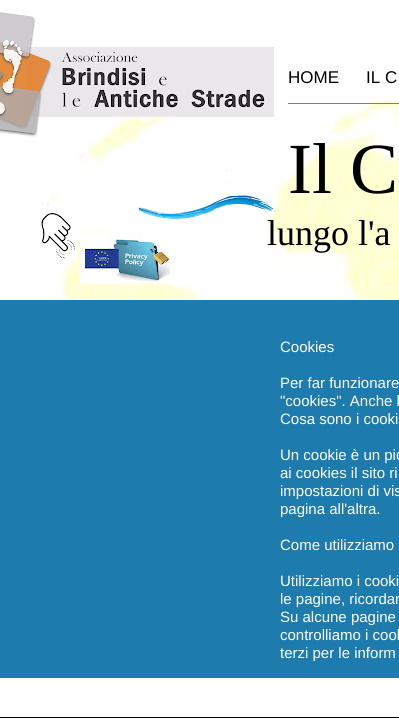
import math
import cairo


def use_color(cr, r, g, b):
  cr.set_source_rgb(r / 255, g / 255, b / 255)

def text(cr, x, y, s, family, size, color, bold=False, italic=False):
  cr.select_font_face(family, cairo.FONT_SLANT_ITALIC if italic else cairo.FONT_SLANT_NORMAL, cairo.FONT_WEIGHT_BOLD if bold else cairo.FONT_WEIGHT_NORMAL)
  cr.set_font_size(size)
  use_color(cr, *color)
  cr.move_to(x, y)
  cr.show_text(s)

def box(cr, x, y, w, h, *color):
  use_color(cr, *color)
  cr.rectangle(x, y, w, h)
  cr.fill()

def picture(cr, path, x, y, w, h):
  cr.save()
  cr.set_source_surface(cairo.ImageSurface.create_from_png(path), x, y)
  cr.rectangle(x, y, w, h)
  cr.fill()
  cr.restore()

def draw(cr):
  use_color(cr, 255, 255, 255)
  cr.paint()
  picture(cr, "img_02.png", 40, 57, 359, 243)
  picture(cr, "img_01.png", 0, 12, 274, 125)
  box(cr, 330, 57, 7, 1, 255, 255, 255)
  box(cr, 358, 57, 41, 44, 255, 255, 255)
  box(cr, 288, 103, 111, 1, 128, 128, 128)
  picture(cr, "img_03.png", 139, 167, 134, 52)
  picture(cr, "img_04.png", 40, 211, 38, 48)
  picture(cr, "img_05.png", 80, 233, 90, 51)
  box(cr, 0, 300, 399, 378, 29, 123, 173)
  box(cr, 0, 717, 399, 1, 0, 0, 0)
  text(cr, 288, 83, "HOME", "Liberation Sans", 17, (0, 0, 0))
  text(cr, 366, 83, "IL C", "Liberation Sans", 17, (0, 0, 0))
  text(cr, 288, 193, "Il C", "Liberation Serif", 72, (0, 0, 0))
  text(cr, 267, 245, "lungo l'a", "Liberation Serif", 36, (0, 0, 0))
  text(cr, 280, 352, "Cookies", "Liberation Sans", 15, (255, 255, 255))
  text(cr, 280, 388, "Per far funzionare", "Liberation Sans", 15, (255, 255, 255))
  text(cr, 280, 406, "\"cookies\". Anche l", "Liberation Sans", 15, (255, 255, 255))
  text(cr, 280, 424, "Cosa sono i cooki", "Liberation Sans", 15, (255, 255, 255))
  text(cr, 280, 460, "Un cookie è un pic", "Liberation Sans", 15, (255, 255, 255))
  text(cr, 280, 478, "ai cookies il sito ri", "Liberation Sans", 15, (255, 255, 255))
  text(cr, 280, 496, "impostazioni di vis", "Liberation Sans", 15, (255, 255, 255))
  text(cr, 280, 514, "pagina all'altra.", "Liberation Sans", 15, (255, 255, 255))
  text(cr, 280, 550, "Come utilizziamo", "Liberation Sans", 15, (255, 255, 255))
  text(cr, 280, 586, "Utilizziamo i cooki", "Liberation Sans", 15, (255, 255, 255))
  text(cr, 280, 604, "le pagine, ricordar", "Liberation Sans", 15, (255, 255, 255))
  text(cr, 280, 622, "Su alcune pagine", "Liberation Sans", 15, (255, 255, 255))
  text(cr, 280, 640, "controlliamo i cook", "Liberation Sans", 15, (255, 255, 255))
  text(cr, 280, 658, "terzi per le inform", "Liberation Sans", 15, (255, 255, 255))


surface = cairo.ImageSurface(cairo.FORMAT_RGB24, 399, 718)
cr = cairo.Context(surface)
options = cairo.FontOptions()
options.set_hint_metrics(cairo.HINT_METRICS_OFF)
options.set_hint_style(cairo.HINT_STYLE_NONE)
cr.set_font_options(options)
cr.set_miter_limit(4)
draw(cr)
surface.write_to_png("out.png")
